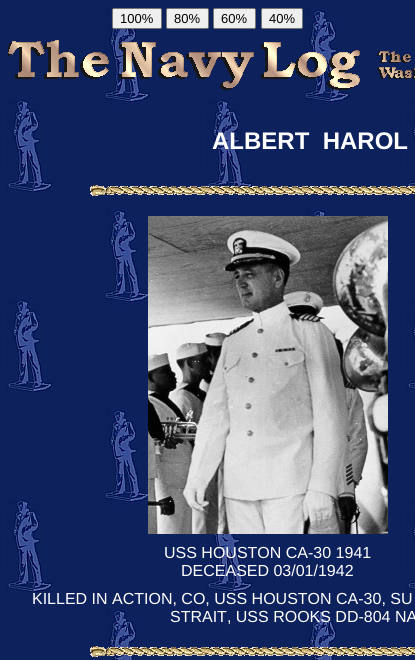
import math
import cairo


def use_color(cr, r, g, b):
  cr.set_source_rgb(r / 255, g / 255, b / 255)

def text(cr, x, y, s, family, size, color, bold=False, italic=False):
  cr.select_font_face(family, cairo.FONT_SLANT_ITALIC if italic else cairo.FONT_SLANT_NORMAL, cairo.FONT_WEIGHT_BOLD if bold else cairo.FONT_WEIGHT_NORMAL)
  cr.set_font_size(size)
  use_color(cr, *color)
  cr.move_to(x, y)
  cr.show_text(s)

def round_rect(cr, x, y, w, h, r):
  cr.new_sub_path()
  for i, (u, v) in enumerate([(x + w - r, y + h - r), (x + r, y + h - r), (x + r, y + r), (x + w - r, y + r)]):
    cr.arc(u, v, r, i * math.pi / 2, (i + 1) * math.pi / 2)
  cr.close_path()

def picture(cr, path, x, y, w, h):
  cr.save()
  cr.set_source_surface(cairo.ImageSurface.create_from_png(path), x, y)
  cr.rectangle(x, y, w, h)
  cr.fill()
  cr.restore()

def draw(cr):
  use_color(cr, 255, 255, 255)
  cr.paint()
  picture(cr, "img_01.png", 0, 0, 415, 660)
  use_color(cr, 239, 239, 239)
  round_rect(cr, 112.5, 8.5, 49, 20, 1.5)
  cr.fill_preserve()
  use_color(cr, 118, 118, 118)
  cr.set_line_width(1)
  cr.stroke()
  use_color(cr, 239, 239, 239)
  round_rect(cr, 166.5, 8.5, 42, 20, 1.5)
  cr.fill_preserve()
  use_color(cr, 118, 118, 118)
  cr.stroke()
  use_color(cr, 239, 239, 239)
  round_rect(cr, 213.5, 8.5, 42, 20, 1.5)
  cr.fill_preserve()
  use_color(cr, 118, 118, 118)
  cr.stroke()
  use_color(cr, 239, 239, 239)
  round_rect(cr, 261.5, 8.5, 41, 20, 1.5)
  cr.fill_preserve()
  use_color(cr, 118, 118, 118)
  cr.stroke()
  picture(cr, "img_02.png", 8, 40, 407, 50)
  picture(cr, "img_03.png", 90, 185, 325, 11)
  picture(cr, "img_04.png", 148, 216, 240, 318)
  picture(cr, "img_05.png", 90, 646, 325, 11)
  text(cr, 120, 23, "100%", "Liberation Sans", 13, (0, 0, 0))
  text(cr, 174, 23, "80%", "Liberation Sans", 13, (0, 0, 0))
  text(cr, 221, 23, "60%", "Liberation Sans", 13, (0, 0, 0))
  text(cr, 269, 23, "40%", "Liberation Sans", 13, (0, 0, 0))
  text(cr, 212, 149, "ALBERT  HAROL", "Liberation Sans", 24, (255, 255, 255), bold=True)
  text(cr, 164, 558, "USS HOUSTON CA-30 1941", "Liberation Sans", 16, (255, 255, 255))
  text(cr, 181, 576, "DECEASED 03/01/1942", "Liberation Sans", 16, (255, 255, 255))
  text(cr, 32, 604, "KILLED IN ACTION, CO, USS HOUSTON CA-30, SU", "Liberation Sans", 16, (255, 255, 255))
  text(cr, 170, 622, "STRAIT, USS ROOKS DD-804 NA", "Liberation Sans", 16, (255, 255, 255))


surface = cairo.ImageSurface(cairo.FORMAT_RGB24, 415, 660)
cr = cairo.Context(surface)
options = cairo.FontOptions()
options.set_hint_metrics(cairo.HINT_METRICS_OFF)
options.set_hint_style(cairo.HINT_STYLE_NONE)
cr.set_font_options(options)
cr.set_miter_limit(4)
draw(cr)
surface.write_to_png("out.png")
